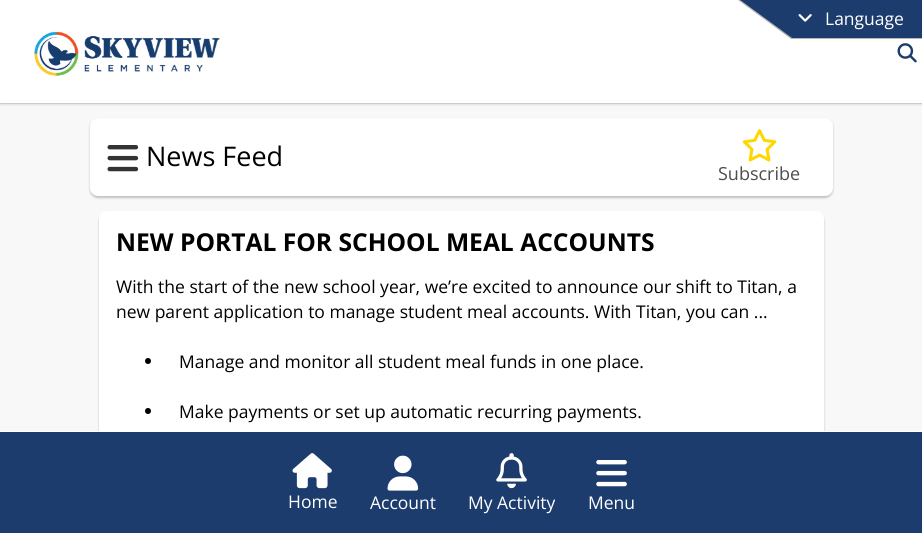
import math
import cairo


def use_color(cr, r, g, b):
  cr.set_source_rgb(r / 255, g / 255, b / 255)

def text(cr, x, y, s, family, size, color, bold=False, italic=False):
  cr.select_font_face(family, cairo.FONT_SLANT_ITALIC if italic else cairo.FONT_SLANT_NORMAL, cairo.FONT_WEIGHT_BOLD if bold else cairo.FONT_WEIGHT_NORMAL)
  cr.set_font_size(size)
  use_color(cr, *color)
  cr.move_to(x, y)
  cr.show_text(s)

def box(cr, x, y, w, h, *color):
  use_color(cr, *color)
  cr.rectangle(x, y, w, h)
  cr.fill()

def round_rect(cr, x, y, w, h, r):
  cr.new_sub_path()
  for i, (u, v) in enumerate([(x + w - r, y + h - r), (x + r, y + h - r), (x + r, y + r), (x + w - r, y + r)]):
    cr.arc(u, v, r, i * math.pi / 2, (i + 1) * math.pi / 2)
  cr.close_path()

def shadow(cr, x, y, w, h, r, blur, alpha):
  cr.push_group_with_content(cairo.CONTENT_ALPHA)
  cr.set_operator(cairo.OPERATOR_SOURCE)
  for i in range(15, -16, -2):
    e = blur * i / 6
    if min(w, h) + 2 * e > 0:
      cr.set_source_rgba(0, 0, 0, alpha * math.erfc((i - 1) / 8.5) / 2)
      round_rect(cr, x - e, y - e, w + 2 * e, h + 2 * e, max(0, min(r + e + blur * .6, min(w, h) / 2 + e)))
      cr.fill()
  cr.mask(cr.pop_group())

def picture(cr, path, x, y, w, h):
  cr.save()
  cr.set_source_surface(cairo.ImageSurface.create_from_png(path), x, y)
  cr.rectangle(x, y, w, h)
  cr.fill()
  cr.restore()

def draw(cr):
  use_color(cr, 248, 248, 248)
  cr.paint()
  use_color(cr, 223, 223, 223)
  cr.new_path()
  cr.move_to(0, 102)
  cr.line_to(0, 104)
  cr.line_to(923, 104)
  cr.line_to(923, 1)
  cr.line_to(922, 1)
  cr.line_to(922, 102)
  cr.close_path()
  cr.fill()
  use_color(cr, 0, 0, 0)
  shadow(cr, 0, 3, 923, 102, 0, 1, 0.1)
  box(cr, 0, 0, 922, 103, 255, 255, 255)
  use_color(cr, 183, 183, 183)
  cr.new_path()
  cr.move_to(738, 0)
  cr.line_to(791, 39)
  cr.line_to(922, 39)
  cr.line_to(922, 0)
  cr.close_path()
  cr.fill()
  use_color(cr, 28, 60, 109)
  cr.new_path()
  cr.move_to(740, 0)
  cr.line_to(792, 38)
  cr.line_to(922, 38)
  cr.line_to(922, 0)
  cr.close_path()
  cr.fill()
  picture(cr, "img_01.png", 798, 14, 14, 8)
  picture(cr, "img_02.png", 34, 31, 186, 45)
  picture(cr, "img_03.png", 897, 43, 20, 20)
  use_color(cr, 0, 0, 0)
  shadow(cr, 90, 119, 743, 79, 8, 1, 0.22)
  use_color(cr, 255, 255, 255)
  round_rect(cr, 90, 118, 743, 78, 8)
  cr.fill()
  picture(cr, "img_04.png", 107, 145, 32, 27)
  picture(cr, "img_05.png", 742, 129, 35, 33)
  use_color(cr, 0, 0, 0)
  shadow(cr, 99, 213, 725, 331, 8, 1, 0.22)
  use_color(cr, 255, 255, 255)
  round_rect(cr, 99, 211, 725, 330, 8)
  cr.fill()
  use_color(cr, 0, 0, 0)
  cr.arc(148, 361, 3, 0, 2 * math.pi)
  cr.fill()
  cr.arc(148, 411, 3, 0, 2 * math.pi)
  cr.fill()
  box(cr, 0, 432, 922, 101, 28, 60, 109)
  box(cr, 0, 431, 922, 1, 255, 255, 255)
  picture(cr, "img_06.png", 292, 453, 40, 36)
  picture(cr, "img_07.png", 387, 455, 32, 36)
  picture(cr, "img_08.png", 496, 453, 31, 36)
  picture(cr, "img_09.png", 596, 460, 31, 27)
  text(cr, 825, 25, "Language", "Open Sans", 17.5, (255, 255, 255))
  text(cr, 146, 166, "News Feed", "Open Sans", 27, (0, 0, 0))
  text(cr, 718, 180, "Subscribe", "Open Sans", 18, (77, 77, 77))
  text(cr, 116, 251, "NEW PORTAL FOR SCHOOL MEAL ACCOUNTS", "Open Sans", 24.6, (0, 0, 0), bold=True)
  text(cr, 116, 293, "With the start of the new school year, we’re excited to announce our shift to Titan, a", "Open Sans", 17.5, (0, 0, 0))
  text(cr, 116, 318, "new parent application to manage student meal accounts. With Titan, you can ...", "Open Sans", 17.5, (0, 0, 0))
  text(cr, 179, 368, "Manage and monitor all student meal funds in one place.", "Open Sans", 17.5, (0, 0, 0))
  text(cr, 179, 418, "Make payments or set up automatic recurring payments.", "Open Sans", 17.5, (0, 0, 0))
  text(cr, 288, 508, "Home", "Open Sans", 17.5, (255, 255, 255))
  text(cr, 370, 509, "Account", "Open Sans", 17.5, (255, 255, 255))
  text(cr, 468, 509, "My Activity", "Open Sans", 17.5, (255, 255, 255))
  text(cr, 588, 509, "Menu", "Open Sans", 17.5, (255, 255, 255))


surface = cairo.ImageSurface(cairo.FORMAT_RGB24, 922, 533)
cr = cairo.Context(surface)
options = cairo.FontOptions()
options.set_hint_metrics(cairo.HINT_METRICS_OFF)
options.set_hint_style(cairo.HINT_STYLE_NONE)
cr.set_font_options(options)
cr.set_miter_limit(4)
draw(cr)
surface.write_to_png("out.png")
